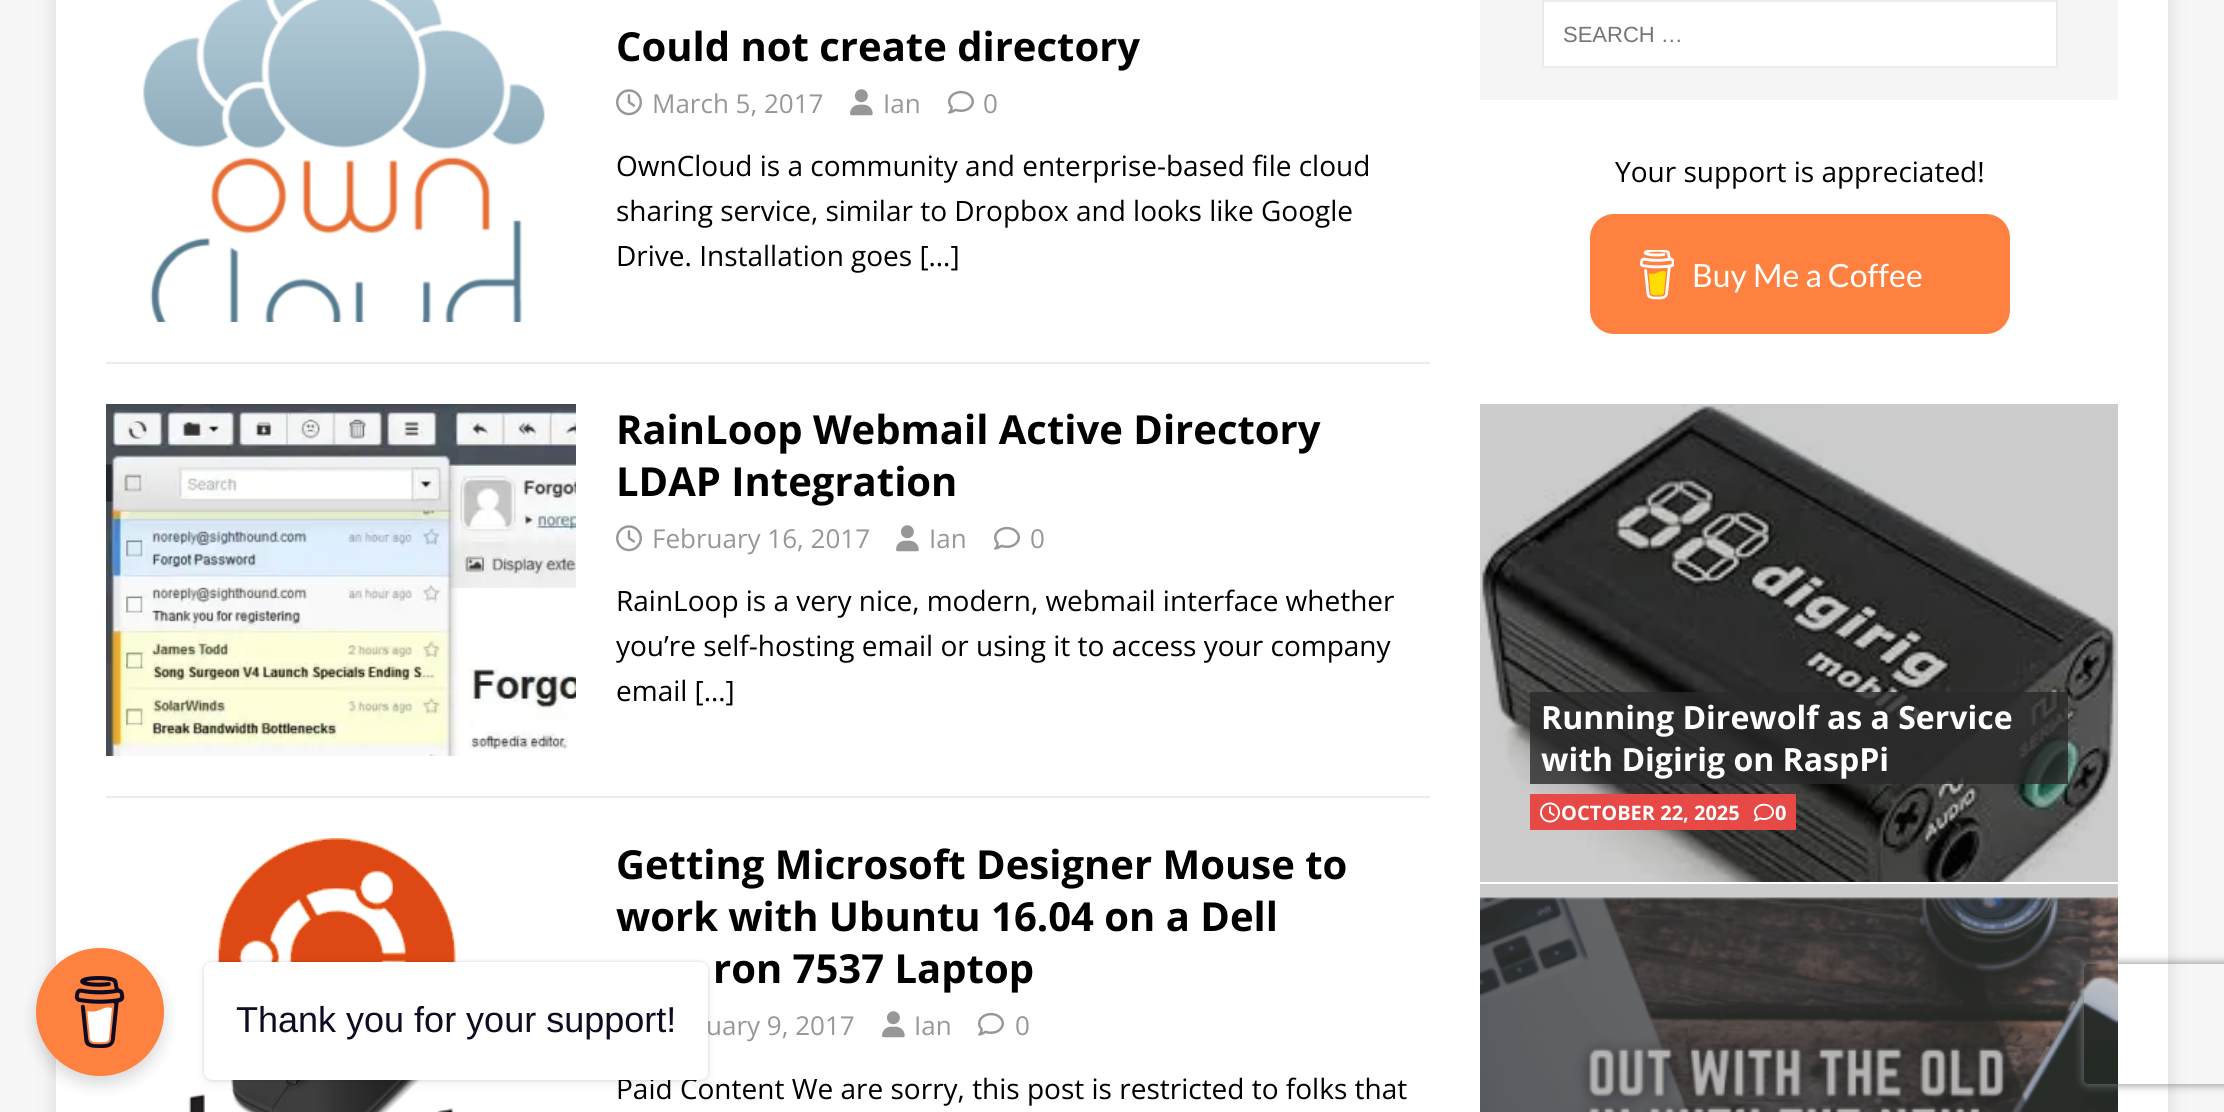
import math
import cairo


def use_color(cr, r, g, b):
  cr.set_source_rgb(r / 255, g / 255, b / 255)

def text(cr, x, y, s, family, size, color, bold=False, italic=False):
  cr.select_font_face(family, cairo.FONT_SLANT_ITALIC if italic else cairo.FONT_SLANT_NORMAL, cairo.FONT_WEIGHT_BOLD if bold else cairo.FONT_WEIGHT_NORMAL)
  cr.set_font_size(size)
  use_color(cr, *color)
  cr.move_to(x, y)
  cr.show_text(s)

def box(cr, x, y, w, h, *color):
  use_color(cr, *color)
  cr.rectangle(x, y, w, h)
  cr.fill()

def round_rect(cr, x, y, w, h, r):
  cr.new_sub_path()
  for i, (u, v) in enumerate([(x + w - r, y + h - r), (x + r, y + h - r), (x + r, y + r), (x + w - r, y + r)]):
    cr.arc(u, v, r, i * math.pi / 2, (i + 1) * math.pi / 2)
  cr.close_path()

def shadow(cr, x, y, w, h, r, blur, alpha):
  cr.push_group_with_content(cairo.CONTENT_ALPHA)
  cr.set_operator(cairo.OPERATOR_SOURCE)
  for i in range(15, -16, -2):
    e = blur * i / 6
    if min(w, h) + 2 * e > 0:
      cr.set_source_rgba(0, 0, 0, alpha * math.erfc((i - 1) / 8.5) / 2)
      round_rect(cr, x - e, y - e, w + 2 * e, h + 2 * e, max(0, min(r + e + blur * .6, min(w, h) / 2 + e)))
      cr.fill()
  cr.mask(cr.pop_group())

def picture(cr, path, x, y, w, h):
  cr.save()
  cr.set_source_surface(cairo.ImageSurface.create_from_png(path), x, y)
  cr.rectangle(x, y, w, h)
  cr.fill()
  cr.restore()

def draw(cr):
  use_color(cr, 247, 247, 247)
  cr.paint()
  use_color(cr, 50, 50, 50)
  shadow(cr, 56, -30, 2112, 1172, 0, 10, 0.17)
  box(cr, 56, 0, 2112, 1112, 255, 255, 255)
  picture(cr, "img_07.png", 188, 838, 268, 274)
  use_color(cr, 0, 0, 0)
  shadow(cr, 36, 956, 128, 128, 64, 8, 0.15)
  use_color(cr, 255, 129, 63)
  cr.arc(100, 1012, 64, 0, 2 * math.pi)
  cr.fill()
  picture(cr, "img_01.png", 74, 976, 51, 72)
  use_color(cr, 0, 0, 0)
  shadow(cr, 204, 962, 504, 118, 8, 2, 0.15)
  shadow(cr, 204, 966, 504, 118, 8, 5, 0.05)
  box(cr, 1480, 884, 638, 17, 204, 204, 204)
  box(cr, 106, 362, 1324, 2, 235, 235, 235)
  picture(cr, "img_02.png", 143, 0, 402, 322)
  picture(cr, "img_03.png", 616, 89, 26, 27)
  picture(cr, "img_04.png", 850, 89, 23, 27)
  picture(cr, "img_05.png", 948, 90, 26, 24)
  box(cr, 106, 796, 1324, 2, 235, 235, 235)
  picture(cr, "img_06.png", 106, 404, 470, 352)
  picture(cr, "img_03.png", 616, 525, 26, 27)
  picture(cr, "img_04.png", 896, 525, 23, 27)
  picture(cr, "img_05.png", 994, 526, 26, 24)
  picture(cr, "img_04.png", 882, 1011, 23, 27)
  picture(cr, "img_05.png", 978, 1012, 26, 24)
  box(cr, 1480, 0, 638, 100, 245, 245, 245)
  use_color(cr, 255, 255, 255)
  cr.rectangle(1543, 1, 514, 66)
  cr.fill_preserve()
  use_color(cr, 235, 235, 235)
  cr.stroke()
  use_color(cr, 255, 129, 63)
  round_rect(cr, 1590, 214, 420, 120, 24)
  cr.fill()
  picture(cr, "img_08.png", 1640, 250, 34, 50)
  picture(cr, "img_09.png", 1480, 404, 638, 478)
  cr.set_source_rgba(0.165, 0.165, 0.165, 0.8)
  cr.rectangle(1530, 692, 538, 92)
  cr.fill()
  box(cr, 1530, 794, 266, 36, 230, 73, 70)
  picture(cr, "img_10.png", 1540, 802, 20, 21)
  picture(cr, "img_11.png", 1754, 803, 20, 19)
  picture(cr, "img_12.png", 1480, 897, 638, 215)
  cr.save()
  cr.set_fill_rule(cairo.FILL_RULE_EVEN_ODD)
  cr.new_path()
  cr.move_to(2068, 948)
  cr.line_to(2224, 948)
  cr.line_to(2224, 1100)
  cr.line_to(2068, 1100)
  cr.close_path()
  cr.move_to(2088, 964)
  cr.line_to(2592, 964)
  cr.curve_to(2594, 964, 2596, 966, 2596, 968)
  cr.line_to(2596, 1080)
  cr.curve_to(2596, 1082, 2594, 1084, 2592, 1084)
  cr.line_to(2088, 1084)
  cr.curve_to(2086, 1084, 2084, 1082, 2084, 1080)
  cr.line_to(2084, 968)
  cr.curve_to(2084, 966, 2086, 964, 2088, 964)
  cr.close_path()
  cr.clip()
  use_color(cr, 128, 128, 128)
  shadow(cr, 2084, 964, 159, 120, 4, 5, 1)
  cr.restore()
  text(cr, 616, 61, "Could not create directory", "Open Sans", 40, (0, 0, 0), bold=True)
  text(cr, 652, 113, "March 5, 2017", "Open Sans", 26, (151, 151, 151))
  text(cr, 883, 113, "Ian", "Open Sans", 26, (151, 151, 151))
  text(cr, 983, 113, "0", "Open Sans", 26, (151, 151, 151))
  text(cr, 616, 176, "OwnCloud is a community and enterprise-based file cloud", "Open Sans", 28, (0, 0, 0))
  text(cr, 616, 221, "sharing service, similar to Dropbox and looks like Google", "Open Sans", 28, (0, 0, 0))
  text(cr, 616, 266, "Drive. Installation goes […]", "Open Sans", 28, (0, 0, 0))
  text(cr, 616, 444, "RainLoop Webmail Active Directory", "Open Sans", 40, (0, 0, 0), bold=True)
  text(cr, 616, 496, "LDAP Integration", "Open Sans", 40, (0, 0, 0), bold=True)
  text(cr, 652, 548, "February 16, 2017", "Open Sans", 26, (151, 151, 151))
  text(cr, 929, 548, "Ian", "Open Sans", 26, (151, 151, 151))
  text(cr, 1030, 548, "0", "Open Sans", 26, (151, 151, 151))
  text(cr, 616, 611, "RainLoop is a very nice, modern, webmail interface whether", "Open Sans", 28, (0, 0, 0))
  cr.save()
  cr.rectangle(616, 580, 814, 134)
  cr.clip()
  text(cr, 616, 656, "you’re self-hosting email or using it to access your company", "Open Sans", 28, (0, 0, 0))
  cr.restore()
  text(cr, 616, 701, "email […]", "Open Sans", 28, (0, 0, 0))
  text(cr, 616, 879, "Getting Microsoft Designer Mouse to", "Open Sans", 40, (0, 0, 0), bold=True)
  text(cr, 616, 931, "work with Ubuntu 16.04 on a Dell", "Open Sans", 40, (0, 0, 0), bold=True)
  text(cr, 713, 983, "ron 7537 Laptop", "Open Sans", 40, (0, 0, 0), bold=True)
  text(cr, 706, 1035, "uary 9, 2017", "Open Sans", 26, (151, 151, 151))
  text(cr, 914, 1035, "Ian", "Open Sans", 26, (151, 151, 151))
  text(cr, 1015, 1035, "0", "Open Sans", 26, (151, 151, 151))
  text(cr, 616, 1099, "Paid Content We are sorry, this post is restricted to folks that", "Open Sans", 28, (0, 0, 0))
  use_color(cr, 255, 255, 255)
  round_rect(cr, 204, 962, 504, 118, 8)
  cr.fill()
  text(cr, 236, 1032, "Thank you for your support!", "Liberation Sans", 36, (13, 12, 34))
  text(cr, 1563, 42, "SEARCH …", "Liberation Sans", 22, (117, 117, 117))
  text(cr, 1615, 182, "Your support is appreciated!", "Open Sans", 28, (0, 0, 0))
  text(cr, 1692, 287, "Buy Me a Coffee", "Lato", 32, (255, 255, 255))
  text(cr, 1541, 729, "Running Direwolf as a Service", "Open Sans", 32, (255, 255, 255), bold=True)
  text(cr, 1541, 771, "with Digirig on RaspPi", "Open Sans", 32, (255, 255, 255), bold=True)
  text(cr, 1561, 820, "OCTOBER 22, 2025", "Open Sans", 20, (255, 255, 255), bold=True)
  text(cr, 1775, 820, "0", "Open Sans", 20, (255, 255, 255), bold=True)


surface = cairo.ImageSurface(cairo.FORMAT_RGB24, 2224, 1112)
cr = cairo.Context(surface)
options = cairo.FontOptions()
options.set_hint_metrics(cairo.HINT_METRICS_OFF)
options.set_hint_style(cairo.HINT_STYLE_NONE)
cr.set_font_options(options)
cr.set_miter_limit(4)
draw(cr)
surface.write_to_png("out.png")
